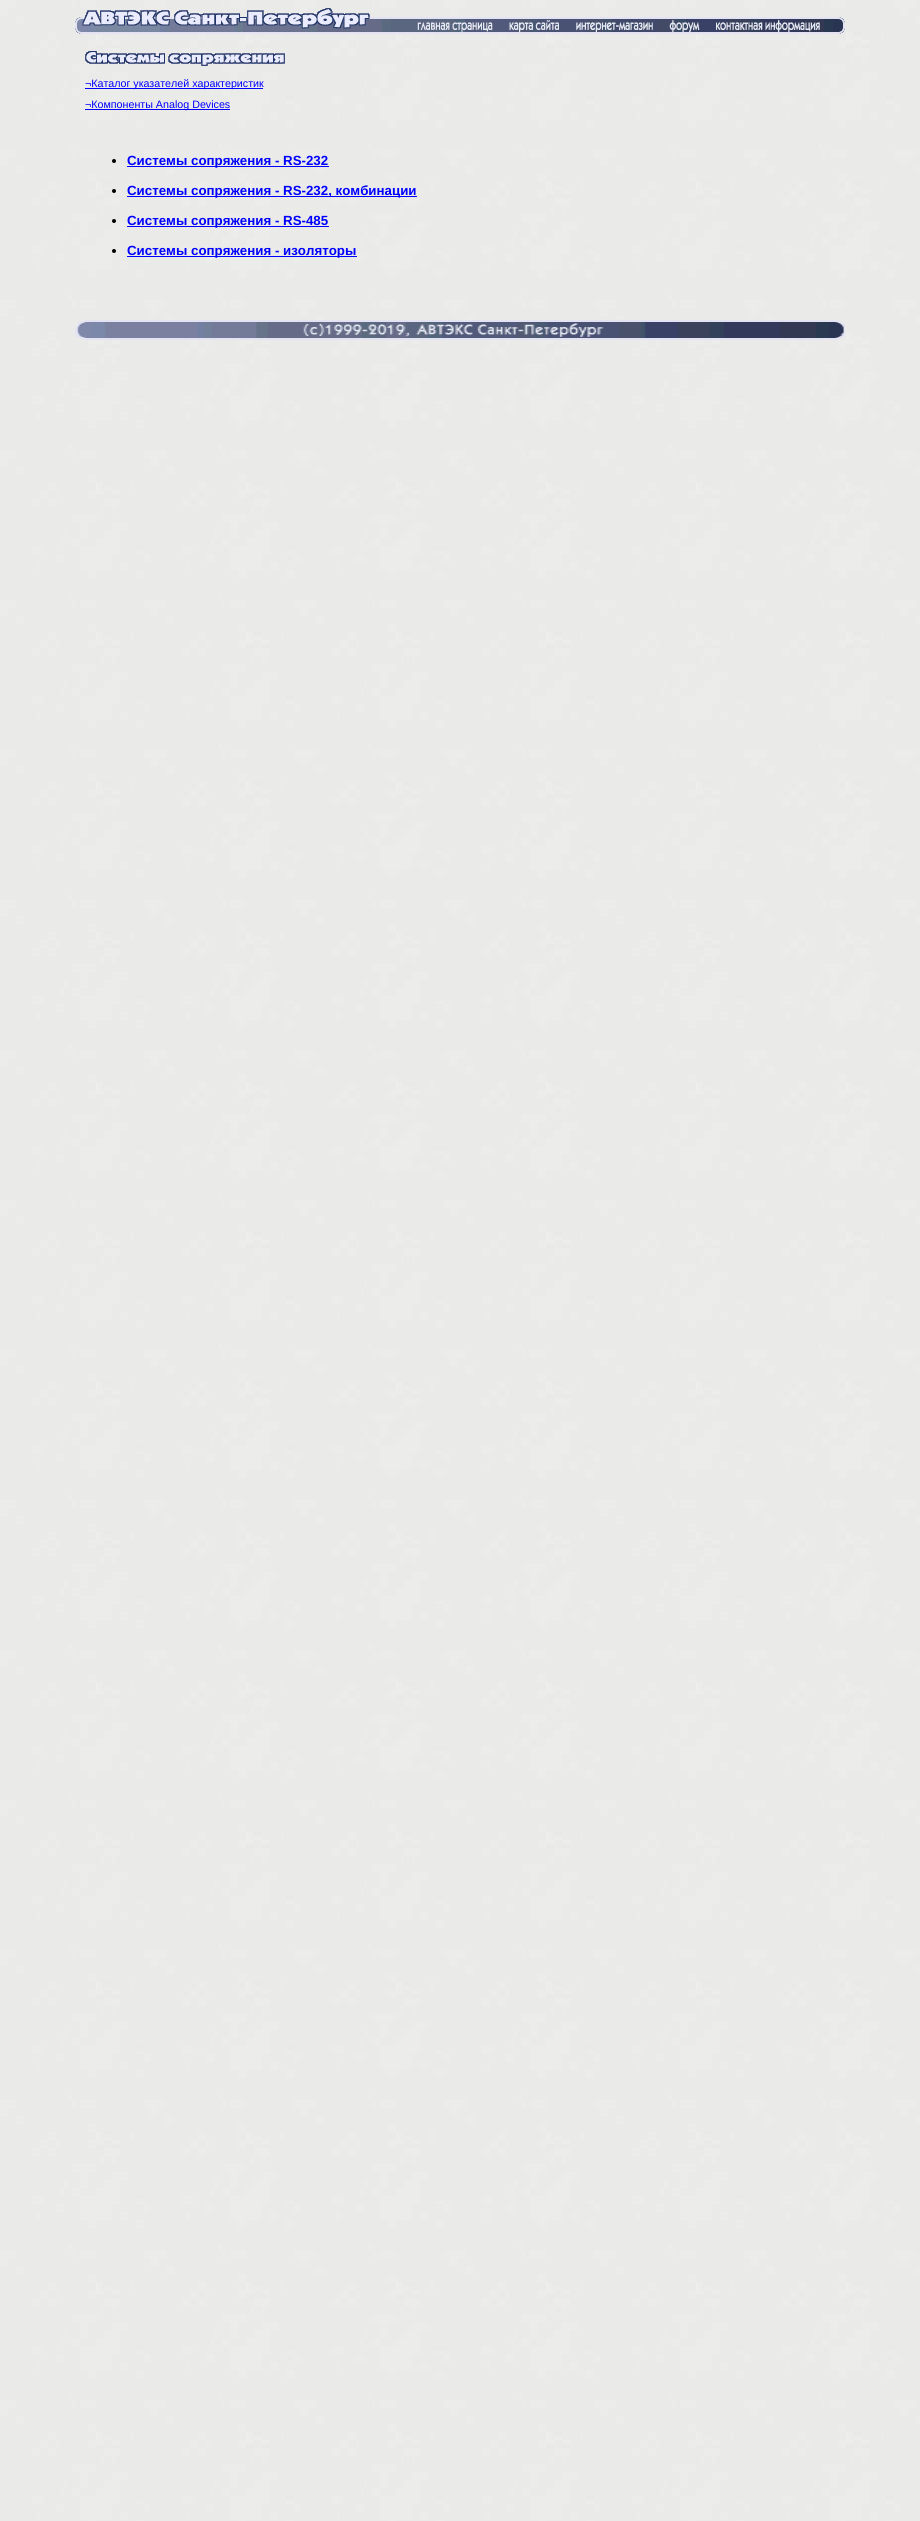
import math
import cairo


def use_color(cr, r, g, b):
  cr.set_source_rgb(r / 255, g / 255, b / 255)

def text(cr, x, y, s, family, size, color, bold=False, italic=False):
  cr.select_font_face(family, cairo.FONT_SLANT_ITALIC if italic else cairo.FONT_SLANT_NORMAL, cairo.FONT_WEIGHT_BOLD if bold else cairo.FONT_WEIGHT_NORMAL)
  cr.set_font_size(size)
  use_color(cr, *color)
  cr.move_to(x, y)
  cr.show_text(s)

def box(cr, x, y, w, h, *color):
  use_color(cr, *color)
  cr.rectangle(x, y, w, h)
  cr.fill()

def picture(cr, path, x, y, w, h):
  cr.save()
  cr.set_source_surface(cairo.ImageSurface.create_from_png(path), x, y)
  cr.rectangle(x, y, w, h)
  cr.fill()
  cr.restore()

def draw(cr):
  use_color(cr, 255, 255, 255)
  cr.paint()
  picture(cr, "img_01.png", 0, 0, 920, 2521)
  picture(cr, "img_02.png", 75, 8, 770, 26)
  picture(cr, "img_03.png", 85, 51, 200, 15)
  box(cr, 85, 88, 178, 1, 0, 0, 255)
  box(cr, 85, 109, 145, 1, 0, 0, 255)
  use_color(cr, 0, 0, 0)
  cr.arc(114, 161, 2, 0, 2 * math.pi)
  cr.fill()
  box(cr, 127, 166, 202, 1, 0, 0, 255)
  use_color(cr, 0, 0, 0)
  cr.arc(114, 191, 2, 0, 2 * math.pi)
  cr.fill()
  box(cr, 127, 196, 290, 1, 0, 0, 255)
  use_color(cr, 0, 0, 0)
  cr.arc(114, 221, 2, 0, 2 * math.pi)
  cr.fill()
  box(cr, 127, 226, 202, 1, 0, 0, 255)
  use_color(cr, 0, 0, 0)
  cr.arc(114, 251, 2, 0, 2 * math.pi)
  cr.fill()
  box(cr, 127, 256, 230, 1, 0, 0, 255)
  picture(cr, "img_04.png", 75, 320, 770, 20)
  text(cr, 85, 87, "¬Каталог указателей характеристик", "Liberation Sans", 10.7, (0, 0, 255))
  text(cr, 85, 108, "¬Компоненты Analog Devices", "Liberation Sans", 10.7, (0, 0, 255))
  text(cr, 127, 165, "Системы сопряжения - RS-232", "Liberation Sans", 13.3, (0, 0, 255), bold=True)
  text(cr, 127, 195, "Системы сопряжения - RS-232, комбинации", "Liberation Sans", 13.3, (0, 0, 255), bold=True)
  text(cr, 127, 225, "Системы сопряжения - RS-485", "Liberation Sans", 13.3, (0, 0, 255), bold=True)
  text(cr, 127, 255, "Системы сопряжения - изоляторы", "Liberation Sans", 13.3, (0, 0, 255), bold=True)


surface = cairo.ImageSurface(cairo.FORMAT_RGB24, 920, 2521)
cr = cairo.Context(surface)
options = cairo.FontOptions()
options.set_hint_metrics(cairo.HINT_METRICS_OFF)
options.set_hint_style(cairo.HINT_STYLE_NONE)
cr.set_font_options(options)
cr.set_miter_limit(4)
draw(cr)
surface.write_to_png("out.png")
